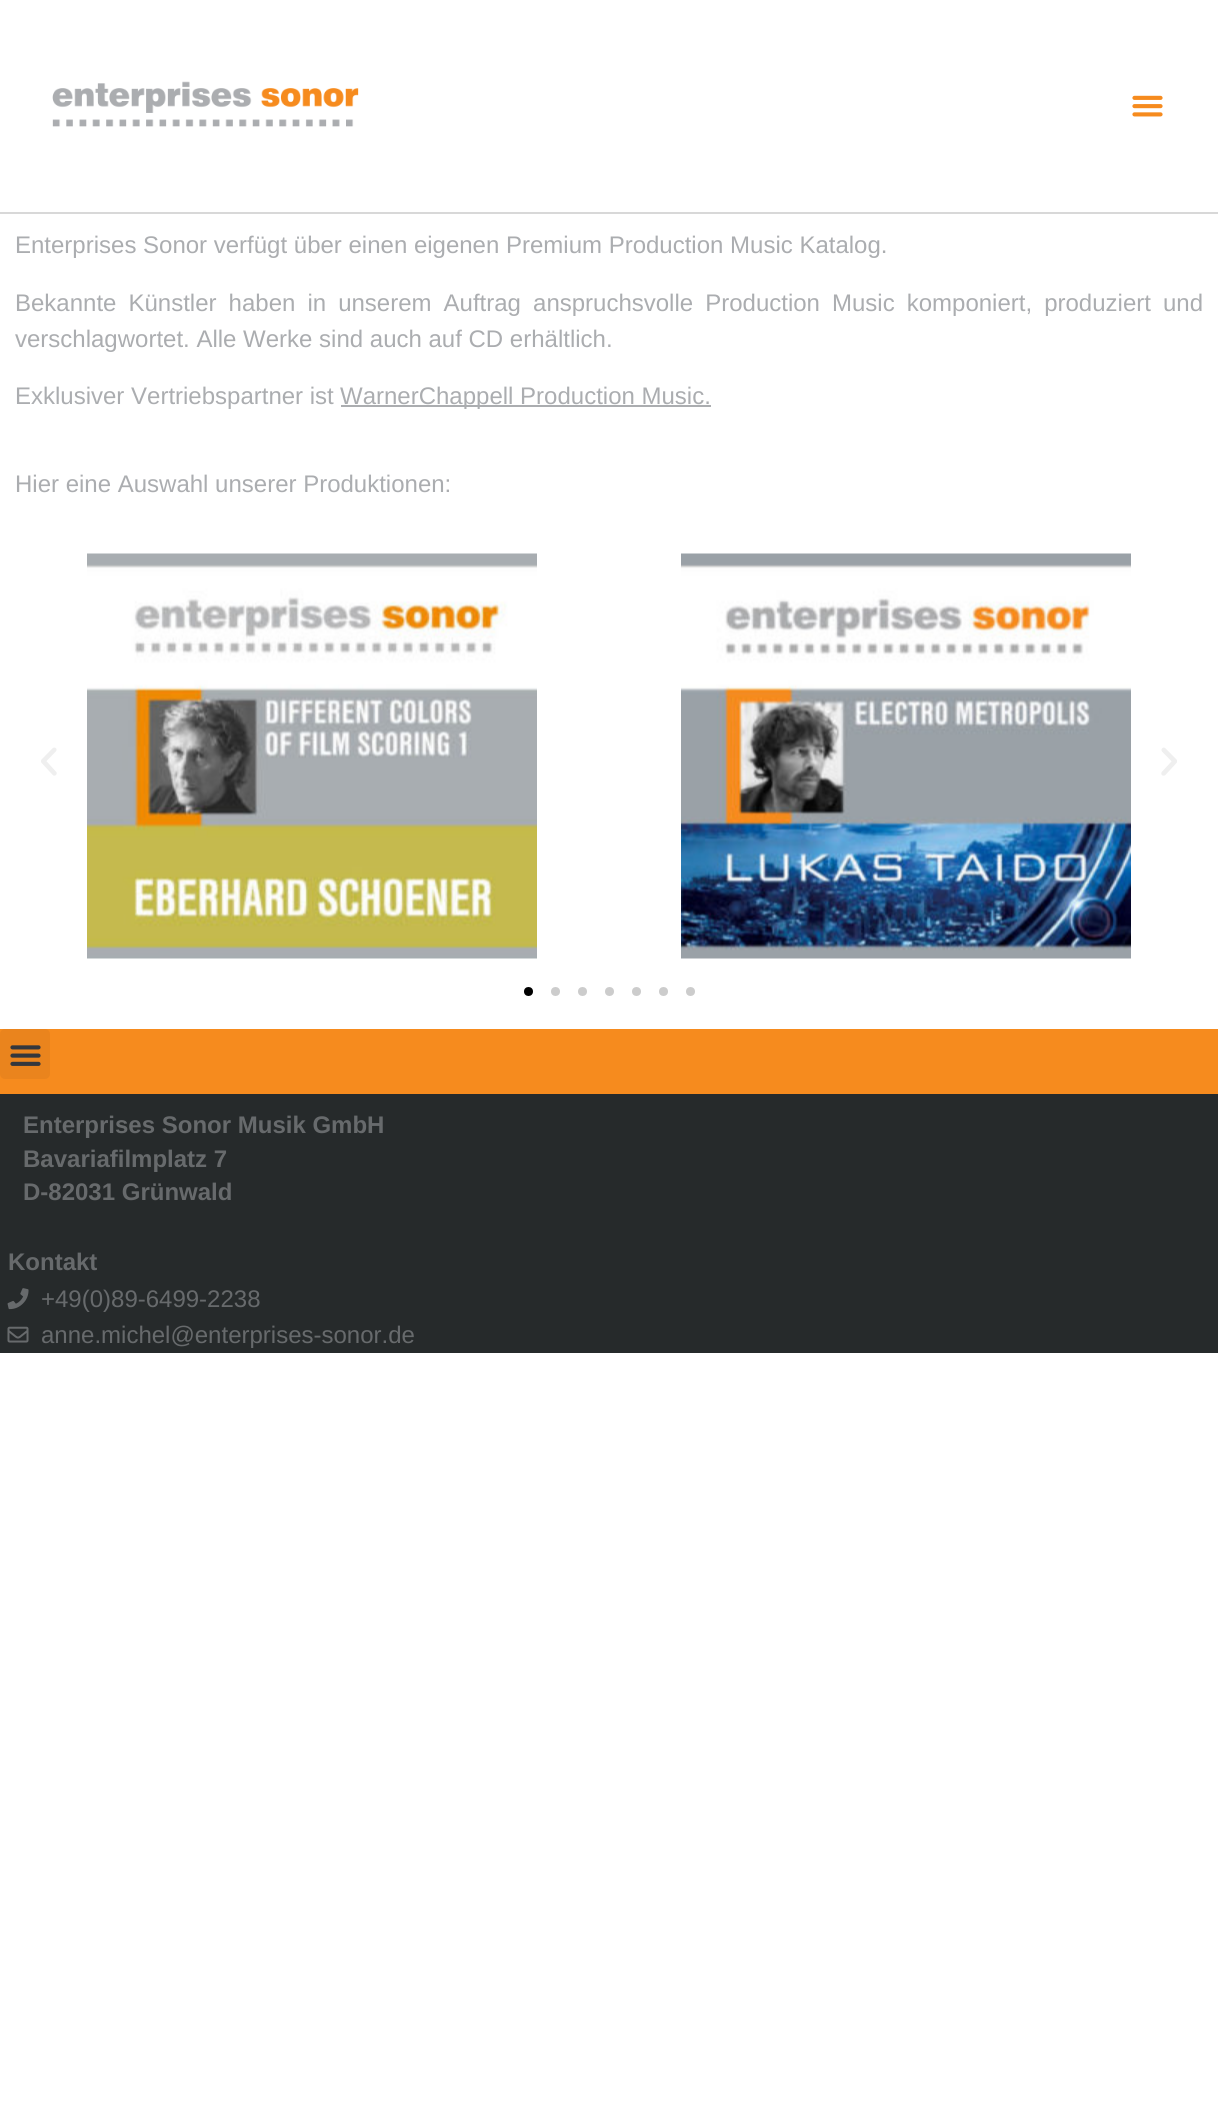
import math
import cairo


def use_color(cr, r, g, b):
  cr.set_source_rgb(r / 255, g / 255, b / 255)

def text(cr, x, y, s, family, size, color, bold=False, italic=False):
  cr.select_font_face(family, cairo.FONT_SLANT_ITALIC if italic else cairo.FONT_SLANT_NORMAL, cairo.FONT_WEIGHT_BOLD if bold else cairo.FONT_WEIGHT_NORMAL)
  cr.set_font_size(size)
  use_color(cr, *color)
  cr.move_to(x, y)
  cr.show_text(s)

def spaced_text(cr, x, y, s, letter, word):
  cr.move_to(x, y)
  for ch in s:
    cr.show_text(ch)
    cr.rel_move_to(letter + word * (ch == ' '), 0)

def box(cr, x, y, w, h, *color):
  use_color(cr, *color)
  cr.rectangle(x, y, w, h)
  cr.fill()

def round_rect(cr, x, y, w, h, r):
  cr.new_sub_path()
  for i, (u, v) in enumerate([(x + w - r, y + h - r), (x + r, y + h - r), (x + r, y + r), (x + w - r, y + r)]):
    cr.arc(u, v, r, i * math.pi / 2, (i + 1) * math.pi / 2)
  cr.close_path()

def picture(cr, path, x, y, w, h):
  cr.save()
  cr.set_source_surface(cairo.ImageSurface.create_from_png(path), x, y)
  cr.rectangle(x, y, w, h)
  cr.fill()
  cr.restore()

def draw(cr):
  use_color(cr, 255, 255, 255)
  cr.paint()
  box(cr, 0, 212, 1218, 2, 216, 216, 216)
  picture(cr, "img_01.png", 52, 81, 307, 46)
  picture(cr, "img_02.png", 1132, 95, 31, 22)
  box(cr, 341, 405, 370, 2, 171, 173, 176)
  picture(cr, "img_03.png", 41, 747, 16, 29)
  picture(cr, "img_04.png", 87, 553, 450, 406)
  picture(cr, "img_05.png", 681, 553, 450, 406)
  picture(cr, "img_06.png", 1161, 747, 16, 29)
  use_color(cr, 0, 0, 0)
  cr.arc(528.5, 991.5, 4.5, 0, 2 * math.pi)
  cr.fill()
  use_color(cr, 204, 204, 204)
  cr.arc(555.5, 991.5, 4.5, 0, 2 * math.pi)
  cr.fill()
  cr.arc(582.5, 991.5, 4.5, 0, 2 * math.pi)
  cr.fill()
  cr.arc(609.5, 991.5, 4.5, 0, 2 * math.pi)
  cr.fill()
  cr.arc(636.5, 991.5, 4.5, 0, 2 * math.pi)
  cr.fill()
  cr.arc(663.5, 991.5, 4.5, 0, 2 * math.pi)
  cr.fill()
  cr.arc(690.5, 991.5, 4.5, 0, 2 * math.pi)
  cr.fill()
  box(cr, 0, 1029, 1218, 65, 246, 139, 30)
  use_color(cr, 234, 132, 29)
  round_rect(cr, 0, 1029, 50, 50, 5)
  cr.fill()
  picture(cr, "img_07.png", 10, 1045, 31, 21)
  box(cr, 0, 1094, 1218, 259, 38, 42, 43)
  picture(cr, "img_08.png", 7, 1288, 22, 22)
  picture(cr, "img_09.png", 7, 1326, 22, 17)
  text(cr, 15, 253, "Enterprises Sonor verfügt über einen eigenen Premium Production Music Katalog.", "Liberation Sans", 24, (171, 173, 176))
  spaced_text(cr, 15, 311, "Bekannte Künstler haben in unserem Auftrag anspruchsvolle Production Music komponiert, produziert und", 0, 5.4)
  text(cr, 15, 347, "verschlagwortet. Alle Werke sind auch auf CD erhältlich.", "Liberation Sans", 24, (171, 173, 176))
  text(cr, 15, 404, "Exklusiver Vertriebspartner ist", "Liberation Sans", 24, (171, 173, 176))
  text(cr, 340, 404, "WarnerChappell Production Music.", "Liberation Sans", 24, (171, 173, 176))
  text(cr, 15, 492, "Hier eine Auswahl unserer Produktionen:", "Liberation Sans", 24, (171, 173, 176))
  text(cr, 23, 1133, "Enterprises Sonor Musik GmbH", "Liberation Sans", 24, (103, 106, 108), bold=True)
  text(cr, 23, 1167, "Bavariafilmplatz 7", "Liberation Sans", 24, (103, 106, 108), bold=True)
  text(cr, 23, 1200, "D-82031 Grünwald", "Liberation Sans", 24, (103, 106, 108), bold=True)
  text(cr, 8, 1270, "Kontakt", "Liberation Sans", 24, (103, 106, 108), bold=True)
  text(cr, 41, 1307, "+49(0)89-6499-2238", "Liberation Sans", 24, (103, 106, 108))
  text(cr, 41, 1343, "anne.michel@enterprises-sonor.de", "Liberation Sans", 24, (103, 106, 108))


surface = cairo.ImageSurface(cairo.FORMAT_RGB24, 1218, 2104)
cr = cairo.Context(surface)
options = cairo.FontOptions()
options.set_hint_metrics(cairo.HINT_METRICS_OFF)
options.set_hint_style(cairo.HINT_STYLE_NONE)
cr.set_font_options(options)
cr.set_miter_limit(4)
draw(cr)
surface.write_to_png("out.png")
